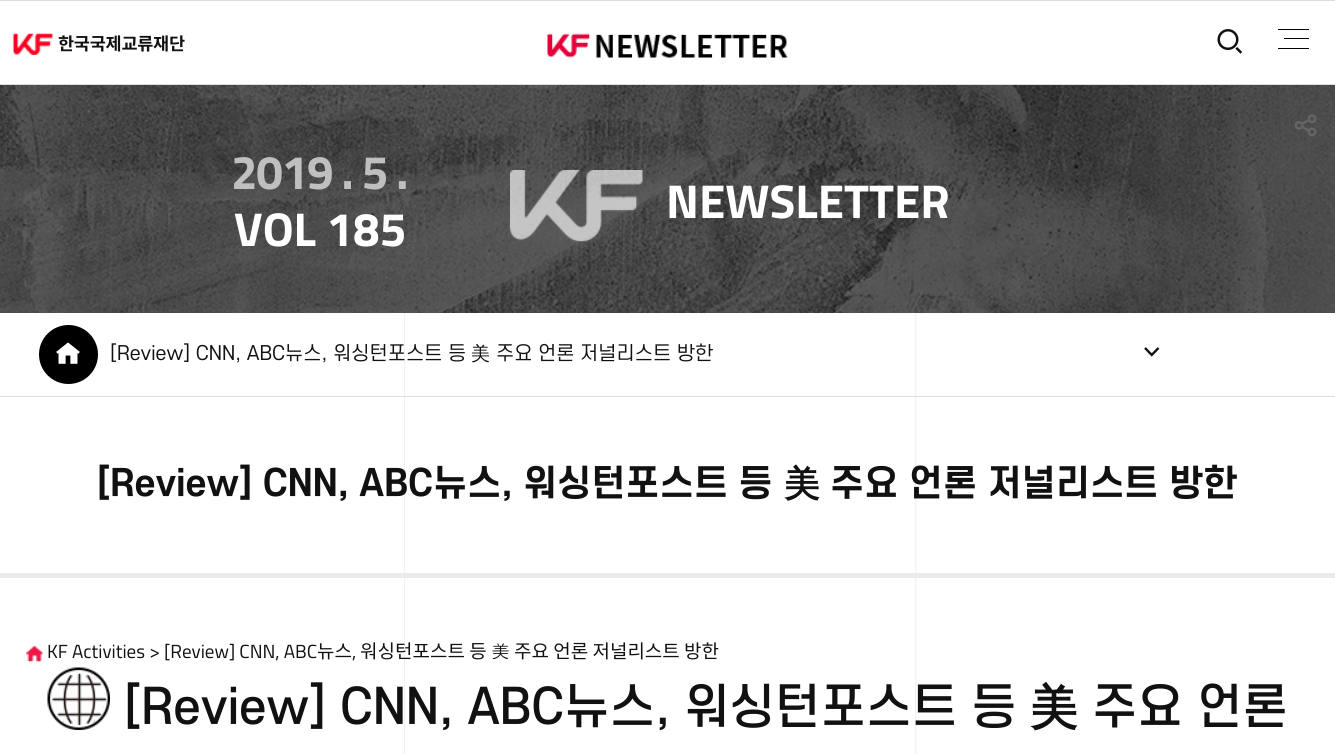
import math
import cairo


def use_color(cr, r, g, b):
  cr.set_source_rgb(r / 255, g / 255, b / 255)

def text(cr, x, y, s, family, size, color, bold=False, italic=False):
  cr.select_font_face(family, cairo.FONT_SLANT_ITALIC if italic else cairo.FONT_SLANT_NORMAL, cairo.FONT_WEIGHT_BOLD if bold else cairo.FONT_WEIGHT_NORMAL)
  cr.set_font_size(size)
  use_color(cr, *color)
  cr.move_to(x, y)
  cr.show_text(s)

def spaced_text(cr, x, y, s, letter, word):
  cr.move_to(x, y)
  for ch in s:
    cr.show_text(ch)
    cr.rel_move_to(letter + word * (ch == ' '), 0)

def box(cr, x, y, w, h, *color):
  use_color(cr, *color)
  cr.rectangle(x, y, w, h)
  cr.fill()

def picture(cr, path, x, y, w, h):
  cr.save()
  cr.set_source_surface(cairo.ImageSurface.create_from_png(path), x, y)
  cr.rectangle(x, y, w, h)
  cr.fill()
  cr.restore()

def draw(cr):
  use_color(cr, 255, 255, 255)
  cr.paint()
  box(cr, 0, 0, 1335, 1, 221, 221, 221)
  picture(cr, "img_01.png", 12, 33, 41, 22)
  picture(cr, "img_02.png", 547, 33, 241, 25)
  picture(cr, "img_03.png", 1217, 29, 26, 25)
  box(cr, 1278, 29, 31, 1, 0, 0, 0)
  box(cr, 1284, 38, 25, 1, 0, 0, 0)
  box(cr, 1278, 48, 31, 1, 0, 0, 0)
  picture(cr, "img_04.png", 404, 313, 513, 441)
  box(cr, 0, 84, 1335, 1, 221, 221, 221)
  picture(cr, "img_05.png", 0, 85, 1335, 228)
  picture(cr, "img_06.png", 510, 170, 133, 72)
  box(cr, 0, 396, 1335, 1, 221, 221, 221)
  picture(cr, "img_07.png", 1294, 114, 23, 23)
  use_color(cr, 0, 0, 0)
  cr.arc(68.5, 354.5, 29.5, 0, 2 * math.pi)
  cr.fill()
  picture(cr, "img_08.png", 56, 342, 24, 22)
  picture(cr, "img_09.png", 1144, 347, 16, 10)
  box(cr, 0, 573, 1335, 5, 235, 235, 234)
  picture(cr, "img_10.png", 26, 646, 17, 16)
  picture(cr, "img_11.png", 47, 667, 63, 63)
  cr.select_font_face("Noto Sans KR", cairo.FONT_SLANT_NORMAL, cairo.FONT_WEIGHT_BOLD)
  cr.set_font_size(17.5)
  use_color(cr, 17, 17, 17)
  spaced_text(cr, 58, 50, "한국국제교류재단", -0.25, 0)
  cr.select_font_face("Titillium Web", cairo.FONT_SLANT_NORMAL, cairo.FONT_WEIGHT_BOLD)
  cr.set_font_size(47.5)
  use_color(cr, 191, 191, 191)
  spaced_text(cr, 231, 189, "2019 . 5 .", -1.25, 0)
  text(cr, 234, 246, "VOL 185", "Titillium Web", 47.5, (255, 255, 255), bold=True)
  text(cr, 666, 218, "NEWSLETTER", "Titillium Web", 47.5, (255, 255, 255), bold=True)
  text(cr, 110, 360, "[Review] CNN, ABC뉴스, 워싱턴포스트 등", "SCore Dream", 19, (17, 17, 17))
  text(cr, 471, 360, "美", "WenQuanYi Zen Hei Medium", 19, (17, 17, 17))
  text(cr, 496, 360, "주요 언론 저널리스트 방한", "SCore Dream", 19, (17, 17, 17))
  text(cr, 97, 496, "[Review] CNN, ABC뉴스, 워싱턴포스트 등", "SCore Dream", 35.6, (17, 17, 17), bold=True)
  text(cr, 784, 496, "美", "WenQuanYi Zen Hei", 35.6, (17, 17, 17), bold=True)
  text(cr, 830, 496, "주요 언론 저널리스트 방한", "SCore Dream", 35.6, (17, 17, 17), bold=True)
  text(cr, 47, 658, "KF Activities > [Review] CNN, ABC", "Titillium Web", 19, (17, 17, 17))
  text(cr, 317, 658, "뉴스", "Noto Sans KR", 19, (17, 17, 17))
  text(cr, 352, 658, ",", "Titillium Web", 19, (17, 17, 17))
  text(cr, 360, 658, "워싱턴포스트 등", "Noto Sans KR", 19, (17, 17, 17))
  text(cr, 491, 658, "美", "Dotum", 19, (17, 17, 17))
  text(cr, 514, 658, "주요 언론 저널리스트 방한", "Noto Sans KR", 19, (17, 17, 17))
  text(cr, 124, 724, "[Review] CNN, ABC뉴스, 워싱턴포스트 등", "SCore Dream Medium", 47.5, (17, 17, 17))
  text(cr, 1030, 724, "美", "WenQuanYi Zen Hei", 47.5, (17, 17, 17), bold=True)
  text(cr, 1092, 724, "주요 언론", "SCore Dream Medium", 47.5, (17, 17, 17))


surface = cairo.ImageSurface(cairo.FORMAT_RGB24, 1335, 754)
cr = cairo.Context(surface)
options = cairo.FontOptions()
options.set_hint_metrics(cairo.HINT_METRICS_OFF)
options.set_hint_style(cairo.HINT_STYLE_NONE)
cr.set_font_options(options)
cr.set_miter_limit(4)
draw(cr)
surface.write_to_png("out.png")
